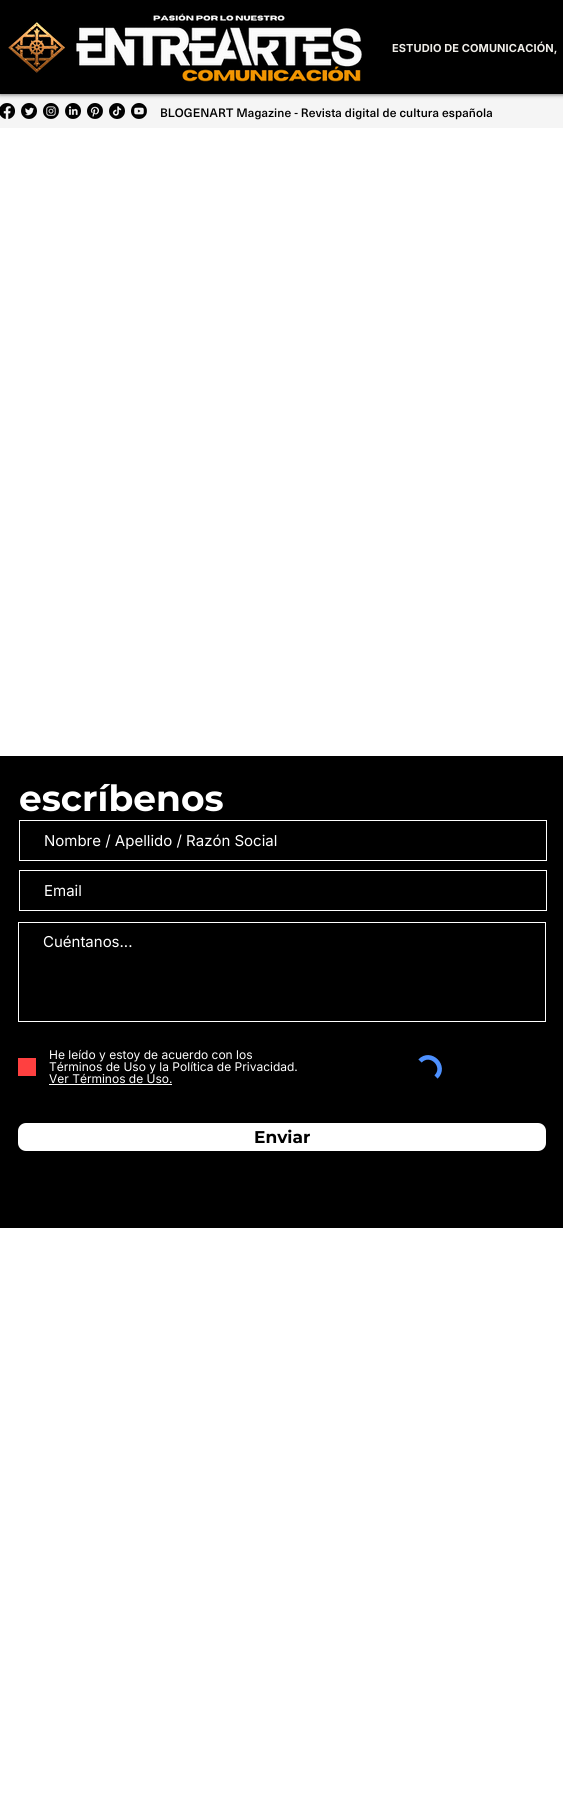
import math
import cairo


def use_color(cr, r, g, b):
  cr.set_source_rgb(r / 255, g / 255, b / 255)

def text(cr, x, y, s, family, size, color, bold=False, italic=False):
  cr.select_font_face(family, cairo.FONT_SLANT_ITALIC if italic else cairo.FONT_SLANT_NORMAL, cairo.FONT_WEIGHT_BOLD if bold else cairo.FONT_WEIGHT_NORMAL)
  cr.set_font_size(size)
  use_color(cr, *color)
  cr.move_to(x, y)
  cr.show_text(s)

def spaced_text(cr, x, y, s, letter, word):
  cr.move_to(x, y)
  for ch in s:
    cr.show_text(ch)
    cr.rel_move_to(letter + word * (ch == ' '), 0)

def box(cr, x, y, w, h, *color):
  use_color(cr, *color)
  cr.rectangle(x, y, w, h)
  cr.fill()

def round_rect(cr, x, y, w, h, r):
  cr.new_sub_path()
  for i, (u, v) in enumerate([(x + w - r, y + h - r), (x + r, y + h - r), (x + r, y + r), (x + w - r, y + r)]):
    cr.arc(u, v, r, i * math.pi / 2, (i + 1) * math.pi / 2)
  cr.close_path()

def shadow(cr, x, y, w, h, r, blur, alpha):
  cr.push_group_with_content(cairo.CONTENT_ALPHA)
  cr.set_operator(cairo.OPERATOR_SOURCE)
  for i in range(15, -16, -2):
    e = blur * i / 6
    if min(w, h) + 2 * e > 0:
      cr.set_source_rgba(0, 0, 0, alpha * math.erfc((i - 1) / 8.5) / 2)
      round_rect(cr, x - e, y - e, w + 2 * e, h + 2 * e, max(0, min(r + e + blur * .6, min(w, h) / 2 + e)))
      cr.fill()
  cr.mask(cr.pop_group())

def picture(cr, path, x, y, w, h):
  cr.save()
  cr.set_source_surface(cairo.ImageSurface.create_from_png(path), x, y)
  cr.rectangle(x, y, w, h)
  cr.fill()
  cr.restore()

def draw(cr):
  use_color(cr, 255, 255, 255)
  cr.paint()
  box(cr, 0, 94, 563, 34, 245, 245, 245)
  use_color(cr, 0, 0, 0)
  shadow(cr, 0, 0, 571, 94, 0, 2.5, 0.7)
  box(cr, 0, 0, 563, 94, 0, 0, 0)
  picture(cr, "img_01.png", 8, 22, 57, 51)
  picture(cr, "img_02.png", 76, 13, 286, 69)
  picture(cr, "img_03.png", 0, 103, 15, 16)
  picture(cr, "img_04.png", 21, 103, 16, 16)
  picture(cr, "img_05.png", 43, 103, 16, 16)
  picture(cr, "img_06.png", 65, 103, 16, 16)
  picture(cr, "img_07.png", 87, 103, 16, 16)
  picture(cr, "img_08.png", 109, 103, 16, 16)
  picture(cr, "img_09.png", 131, 103, 16, 16)
  box(cr, 0, 756, 563, 472, 0, 0, 0)
  cr.rectangle(19.5, 820.5, 527, 40)
  use_color(cr, 255, 255, 255)
  cr.set_line_width(1)
  cr.stroke()
  cr.rectangle(19.5, 870.5, 527, 40)
  cr.stroke()
  cr.rectangle(18.5, 922.5, 527, 99)
  cr.stroke()
  box(cr, 18, 1058, 18, 18, 255, 64, 64)
  box(cr, 49, 1084, 123, 1, 255, 255, 255)
  cr.new_path()
  cr.move_to(420, 1061)
  cr.curve_to(430.5, 1050, 447, 1066.5, 436, 1077)
  use_color(cr, 77, 144, 254)
  cr.set_line_width(4.6)
  cr.stroke()
  use_color(cr, 255, 255, 255)
  round_rect(cr, 18, 1123, 528, 28, 8)
  cr.fill()
  cr.select_font_face("Inter", cairo.FONT_SLANT_NORMAL, cairo.FONT_WEIGHT_BOLD)
  cr.set_font_size(11)
  use_color(cr, 240, 238, 233)
  spaced_text(cr, 392, 52, "ESTUDIO DE COMUNICACIÓN,", 0.1, 0)
  cr.select_font_face("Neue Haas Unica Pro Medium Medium")
  cr.set_font_size(12)
  use_color(cr, 0, 0, 0)
  spaced_text(cr, 160, 117, "BLOGENART Magazine - Revista digital de cultura española", 0.12, 0)
  text(cr, 19, 811, "escríbenos", "Montserrat", 36, (255, 255, 255), bold=True)
  text(cr, 44, 846, "Nombre / Apellido / Razón Social", "Inter", 15, (255, 255, 255))
  text(cr, 44, 896, "Email", "Inter", 15, (255, 255, 255))
  text(cr, 43, 947, "Cuéntanos...", "Inter", 15, (255, 255, 255))
  text(cr, 49, 1059, "He leído y estoy de acuerdo con los", "Inter", 12, (255, 255, 255))
  text(cr, 49, 1071, "Términos de Uso y la Política de Privacidad.", "Inter", 12, (255, 255, 255))
  text(cr, 49, 1083, "Ver Términos de Uso.", "Inter", 12, (255, 255, 255))
  text(cr, 254, 1143, "Enviar", "Montserrat", 17, (0, 0, 0), bold=True)


surface = cairo.ImageSurface(cairo.FORMAT_RGB24, 563, 1813)
cr = cairo.Context(surface)
options = cairo.FontOptions()
options.set_hint_metrics(cairo.HINT_METRICS_OFF)
options.set_hint_style(cairo.HINT_STYLE_NONE)
cr.set_font_options(options)
cr.set_miter_limit(4)
draw(cr)
surface.write_to_png("out.png")
